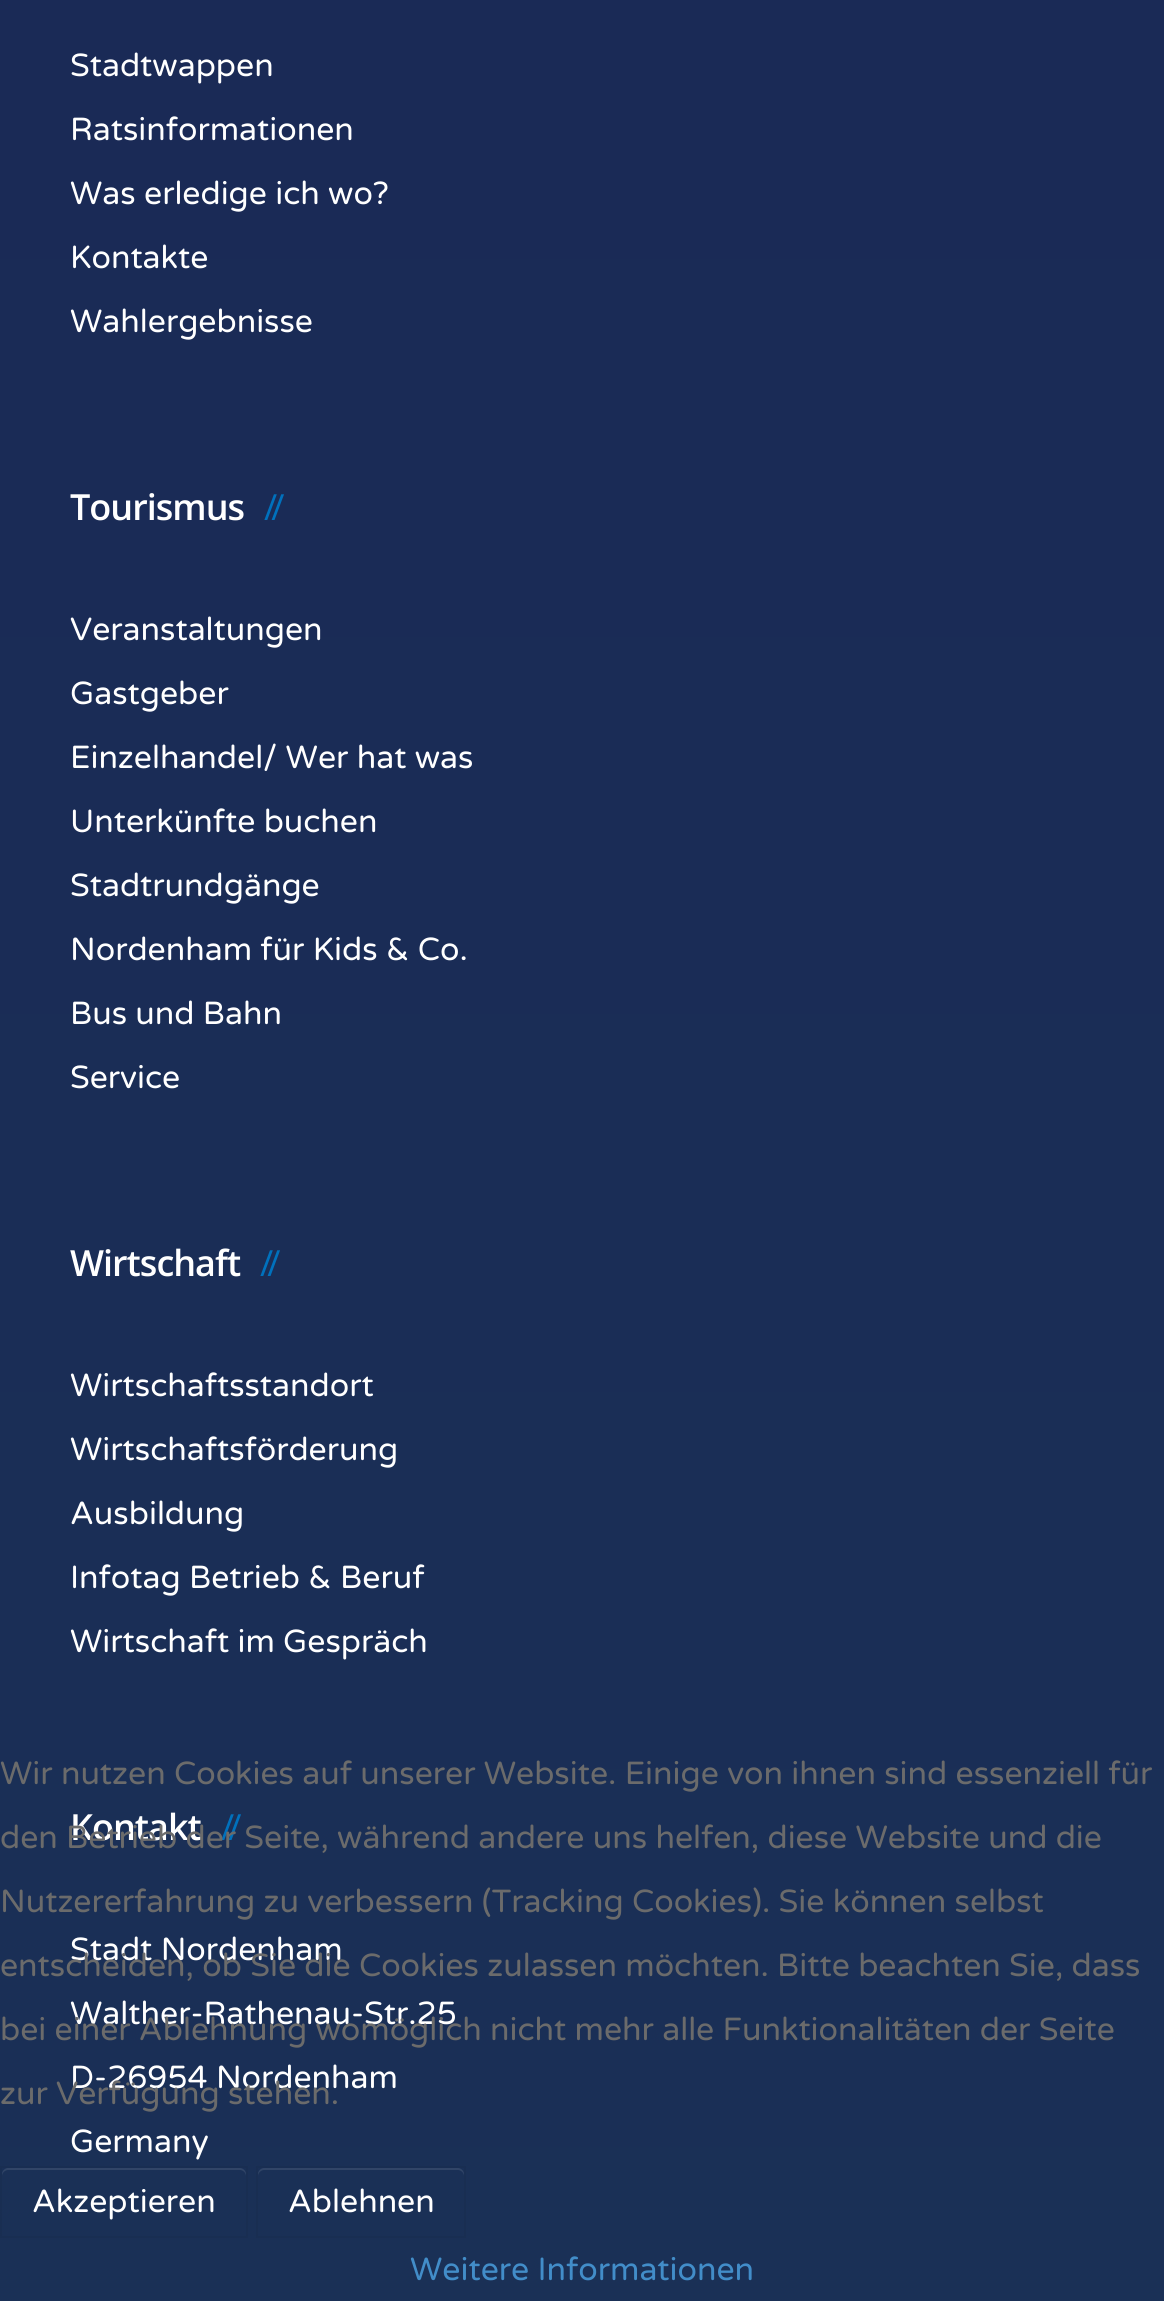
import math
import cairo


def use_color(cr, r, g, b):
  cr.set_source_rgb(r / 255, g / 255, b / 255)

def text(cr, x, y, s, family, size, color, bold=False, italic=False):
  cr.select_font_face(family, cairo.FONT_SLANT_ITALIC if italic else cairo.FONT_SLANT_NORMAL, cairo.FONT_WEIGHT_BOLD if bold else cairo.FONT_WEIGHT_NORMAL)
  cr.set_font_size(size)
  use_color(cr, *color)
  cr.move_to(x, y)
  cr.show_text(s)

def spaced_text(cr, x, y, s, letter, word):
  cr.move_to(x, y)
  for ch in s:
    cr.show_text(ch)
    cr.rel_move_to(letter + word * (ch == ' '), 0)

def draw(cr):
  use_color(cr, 255, 255, 255)
  cr.paint()
  gradient = cairo.LinearGradient(582, -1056, 582, 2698)
  gradient.add_color_stop_rgba(0, 0.102, 0.153, 0.337, 1)
  gradient.add_color_stop_rgba(1, 0.102, 0.192, 0.337, 1)
  cr.set_source(gradient)
  cr.rectangle(0, 0, 1164, 2301)
  cr.fill()
  use_color(cr, 49, 69, 103)
  cr.new_path()
  cr.move_to(8, 2170)
  cr.line_to(240, 2170)
  cr.curve_to(243, 2170, 246, 2173, 246, 2176)
  cr.line_to(246, 2174)
  cr.curve_to(246, 2171, 243, 2168, 240, 2168)
  cr.line_to(8, 2168)
  cr.curve_to(5, 2168, 2, 2171, 2, 2174)
  cr.line_to(2, 2176)
  cr.curve_to(2, 2173, 5, 2170, 8, 2170)
  cr.close_path()
  cr.fill()
  cr.rectangle(1, 2167, 246, 70)
  cr.set_source_rgba(0, 0, 0, 0.05)
  cr.stroke()
  use_color(cr, 49, 69, 103)
  cr.new_path()
  cr.move_to(264, 2170)
  cr.line_to(458, 2170)
  cr.curve_to(461, 2170, 464, 2173, 464, 2176)
  cr.line_to(464, 2174)
  cr.curve_to(464, 2171, 461, 2168, 458, 2168)
  cr.line_to(264, 2168)
  cr.curve_to(261, 2168, 258, 2171, 258, 2174)
  cr.line_to(258, 2176)
  cr.curve_to(258, 2173, 261, 2170, 264, 2170)
  cr.close_path()
  cr.fill()
  cr.rectangle(257, 2167, 208, 70)
  cr.set_source_rgba(0, 0, 0, 0.05)
  cr.stroke()
  text(cr, 70, 76, "Stadtwappen", "Varela Round", 32, (255, 255, 255))
  text(cr, 70, 140, "Ratsinformationen", "Varela Round", 32, (255, 255, 255))
  text(cr, 70, 204, "Was erledige ich wo?", "Varela Round", 32, (255, 255, 255))
  text(cr, 70, 268, "Kontakte", "Varela Round", 32, (255, 255, 255))
  text(cr, 70, 332, "Wahlergebnisse", "Varela Round", 32, (255, 255, 255))
  cr.select_font_face("Open Sans SemiBold")
  cr.set_font_size(36)
  spaced_text(cr, 70, 520, "Tourismus", -1, 0)
  cr.select_font_face("Open Sans")
  use_color(cr, 0, 113, 189)
  spaced_text(cr, 264, 520, "//", -6, 0)
  text(cr, 70, 640, "Veranstaltungen", "Varela Round", 32, (255, 255, 255))
  text(cr, 70, 704, "Gastgeber", "Varela Round", 32, (255, 255, 255))
  text(cr, 70, 768, "Einzelhandel/ Wer hat was", "Varela Round", 32, (255, 255, 255))
  text(cr, 70, 832, "Unterkünfte buchen", "Varela Round", 32, (255, 255, 255))
  text(cr, 70, 896, "Stadtrundgänge", "Varela Round", 32, (255, 255, 255))
  text(cr, 70, 960, "Nordenham für Kids & Co.", "Varela Round", 32, (255, 255, 255))
  text(cr, 70, 1024, "Bus und Bahn", "Varela Round", 32, (255, 255, 255))
  text(cr, 70, 1088, "Service", "Varela Round", 32, (255, 255, 255))
  cr.select_font_face("Open Sans SemiBold")
  cr.set_font_size(36)
  spaced_text(cr, 70, 1276, "Wirtschaft", -1, 0)
  cr.select_font_face("Open Sans")
  use_color(cr, 0, 113, 189)
  spaced_text(cr, 260, 1276, "//", -6, 0)
  text(cr, 70, 1396, "Wirtschaftsstandort", "Varela Round", 32, (255, 255, 255))
  text(cr, 70, 1460, "Wirtschaftsförderung", "Varela Round", 32, (255, 255, 255))
  text(cr, 70, 1524, "Ausbildung", "Varela Round", 32, (255, 255, 255))
  text(cr, 70, 1588, "Infotag Betrieb & Beruf", "Varela Round", 32, (255, 255, 255))
  text(cr, 70, 1652, "Wirtschaft im Gespräch", "Varela Round", 32, (255, 255, 255))
  cr.select_font_face("Open Sans SemiBold")
  cr.set_font_size(36)
  spaced_text(cr, 70, 1840, "Kontakt", -1, 0)
  cr.select_font_face("Open Sans")
  use_color(cr, 0, 113, 189)
  spaced_text(cr, 221, 1840, "//", -6, 0)
  text(cr, 70, 1960, "Stadt Nordenham", "Varela Round", 32, (255, 255, 255))
  text(cr, 70, 2024, "Walther-Rathenau-Str.25", "Varela Round", 32, (255, 255, 255))
  text(cr, 70, 2088, "D-26954 Nordenham", "Varela Round", 32, (255, 255, 255))
  text(cr, 70, 2152, "Germany", "Varela Round", 32, (255, 255, 255))
  text(cr, 0, 1784, "Wir nutzen Cookies auf unserer Website. Einige von ihnen sind essenziell für", "Varela Round", 32, (107, 107, 107))
  text(cr, 0, 1848, "den Betrieb der Seite, während andere uns helfen, diese Website und die", "Varela Round", 32, (107, 107, 107))
  text(cr, 0, 1912, "Nutzererfahrung zu verbessern (Tracking Cookies). Sie können selbst", "Varela Round", 32, (107, 107, 107))
  text(cr, 0, 1976, "entscheiden, ob Sie die Cookies zulassen möchten. Bitte beachten Sie, dass", "Varela Round", 32, (107, 107, 107))
  text(cr, 0, 2040, "bei einer Ablehnung womöglich nicht mehr alle Funktionalitäten der Seite", "Varela Round", 32, (107, 107, 107))
  text(cr, 0, 2104, "zur Verfügung stehen.", "Varela Round", 32, (107, 107, 107))
  text(cr, 32, 2212, "Akzeptieren", "Varela Round", 32, (255, 255, 255))
  text(cr, 288, 2212, "Ablehnen", "Varela Round", 32, (255, 255, 255))
  text(cr, 410, 2280, "Weitere Informationen", "Varela Round", 32, (66, 141, 201))


surface = cairo.ImageSurface(cairo.FORMAT_RGB24, 1164, 2301)
cr = cairo.Context(surface)
options = cairo.FontOptions()
options.set_hint_metrics(cairo.HINT_METRICS_OFF)
options.set_hint_style(cairo.HINT_STYLE_NONE)
cr.set_font_options(options)
cr.set_miter_limit(4)
draw(cr)
surface.write_to_png("out.png")
